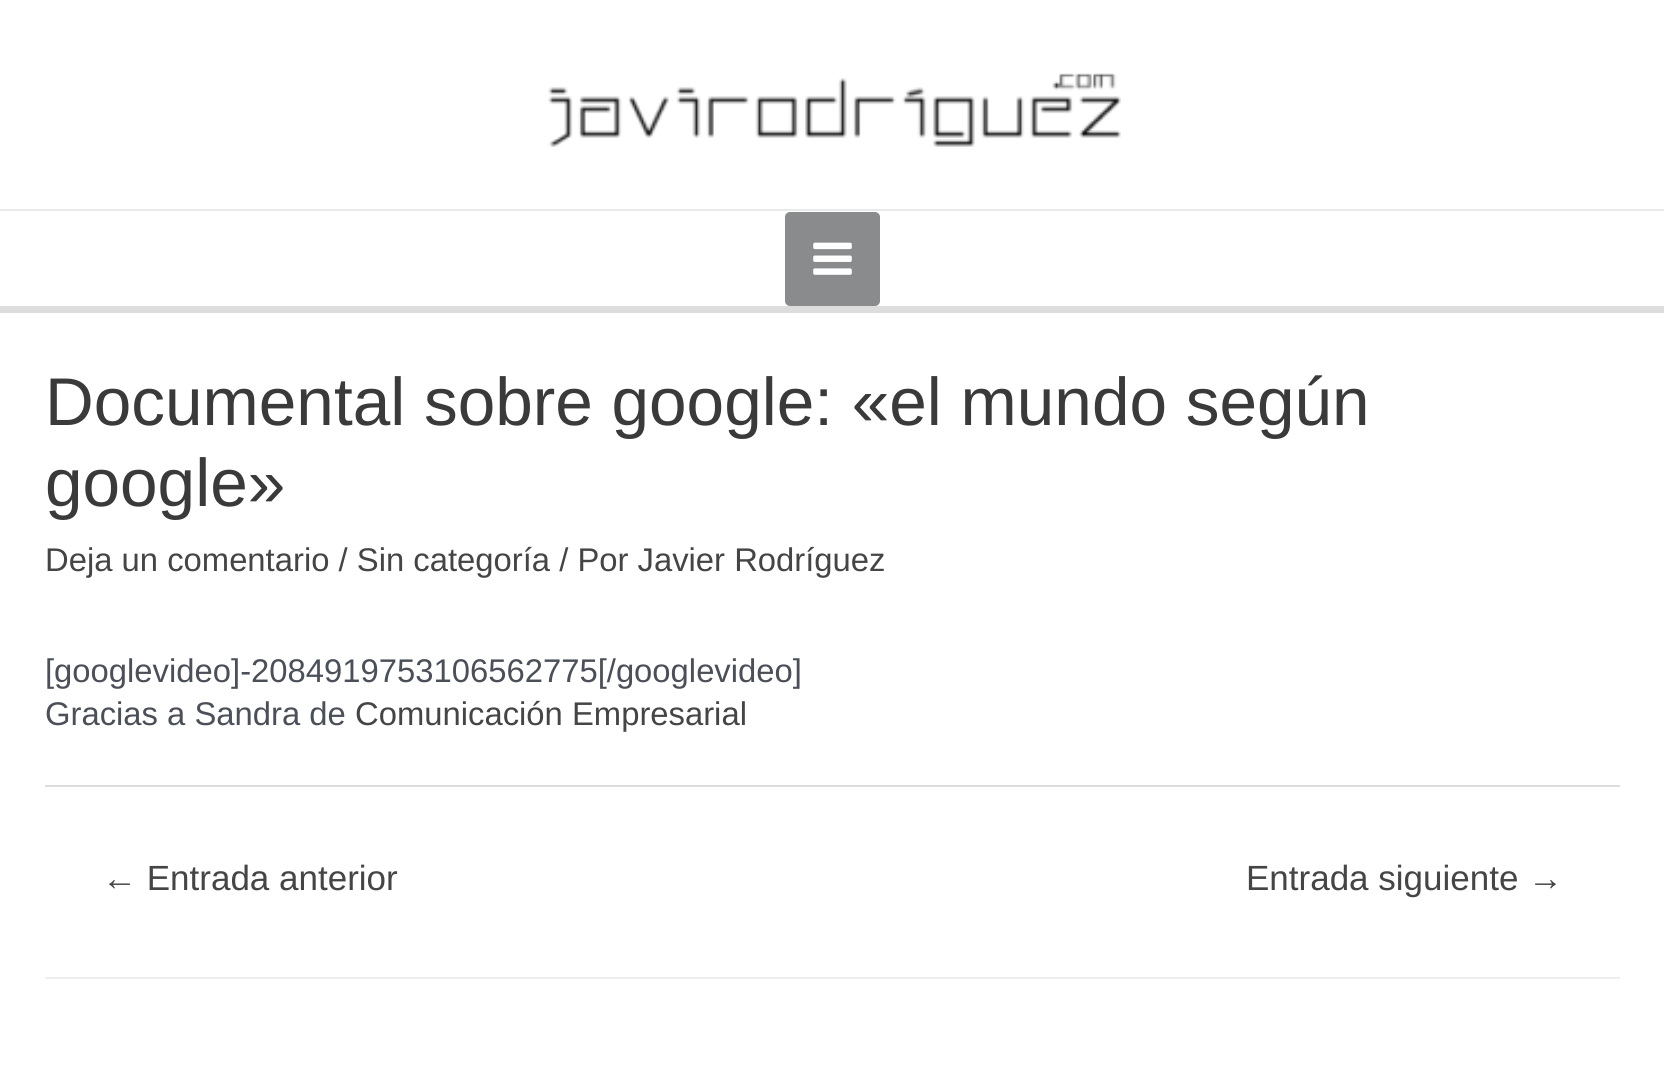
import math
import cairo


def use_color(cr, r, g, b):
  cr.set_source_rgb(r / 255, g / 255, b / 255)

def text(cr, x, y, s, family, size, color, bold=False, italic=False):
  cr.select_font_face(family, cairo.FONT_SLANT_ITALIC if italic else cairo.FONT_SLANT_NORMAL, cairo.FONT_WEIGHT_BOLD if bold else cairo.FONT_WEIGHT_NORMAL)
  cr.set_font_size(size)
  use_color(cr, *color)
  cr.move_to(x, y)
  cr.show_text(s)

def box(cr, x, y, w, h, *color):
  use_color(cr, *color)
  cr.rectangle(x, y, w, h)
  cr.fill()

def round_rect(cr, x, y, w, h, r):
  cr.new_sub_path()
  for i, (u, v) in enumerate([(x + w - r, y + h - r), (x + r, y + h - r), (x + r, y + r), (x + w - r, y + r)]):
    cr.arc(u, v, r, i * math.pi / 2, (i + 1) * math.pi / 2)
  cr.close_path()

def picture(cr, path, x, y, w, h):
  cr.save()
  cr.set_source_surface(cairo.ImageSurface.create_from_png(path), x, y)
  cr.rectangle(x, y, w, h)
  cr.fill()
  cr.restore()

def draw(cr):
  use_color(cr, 255, 255, 255)
  cr.paint()
  box(cr, 0, 209, 1664, 2, 234, 234, 234)
  picture(cr, "img_01.png", 548, 73, 573, 74)
  box(cr, 0, 306, 1664, 7, 221, 221, 221)
  use_color(cr, 137, 139, 141)
  round_rect(cr, 785, 212, 95, 94, 5)
  cr.fill()
  picture(cr, "img_02.png", 813, 242, 39, 33)
  box(cr, 45, 785, 1575, 2, 221, 221, 221)
  box(cr, 45, 977, 1575, 2, 238, 238, 238)
  text(cr, 45, 425, "Documental sobre google: «el mundo según", "Liberation Sans", 67.5, (58, 58, 58))
  text(cr, 45, 506, "google»", "Liberation Sans", 67.5, (58, 58, 58))
  text(cr, 45, 571, "Deja un comentario / Sin categoría / Por Javier Rodríguez", "Liberation Sans", 32.8, (69, 69, 70))
  text(cr, 45, 682, "[googlevideo]-2084919753106562775[/googlevideo]", "Liberation Sans", 32.8, (75, 79, 88))
  text(cr, 45, 725, "Gracias a Sandra de", "Liberation Sans", 32.8, (75, 79, 88))
  text(cr, 355, 725, "Comunicación Empresarial", "Liberation Sans", 32.8, (69, 69, 70))
  text(cr, 102, 890, "← Entrada anterior", "Liberation Sans", 35, (69, 69, 70))
  text(cr, 1246, 890, "Entrada siguiente", "Liberation Sans", 35, (69, 69, 70))
  text(cr, 1528, 890, "→", "Liberation Sans", 35, (69, 69, 70))


surface = cairo.ImageSurface(cairo.FORMAT_RGB24, 1664, 1078)
cr = cairo.Context(surface)
options = cairo.FontOptions()
options.set_hint_metrics(cairo.HINT_METRICS_OFF)
options.set_hint_style(cairo.HINT_STYLE_NONE)
cr.set_font_options(options)
cr.set_miter_limit(4)
draw(cr)
surface.write_to_png("out.png")
